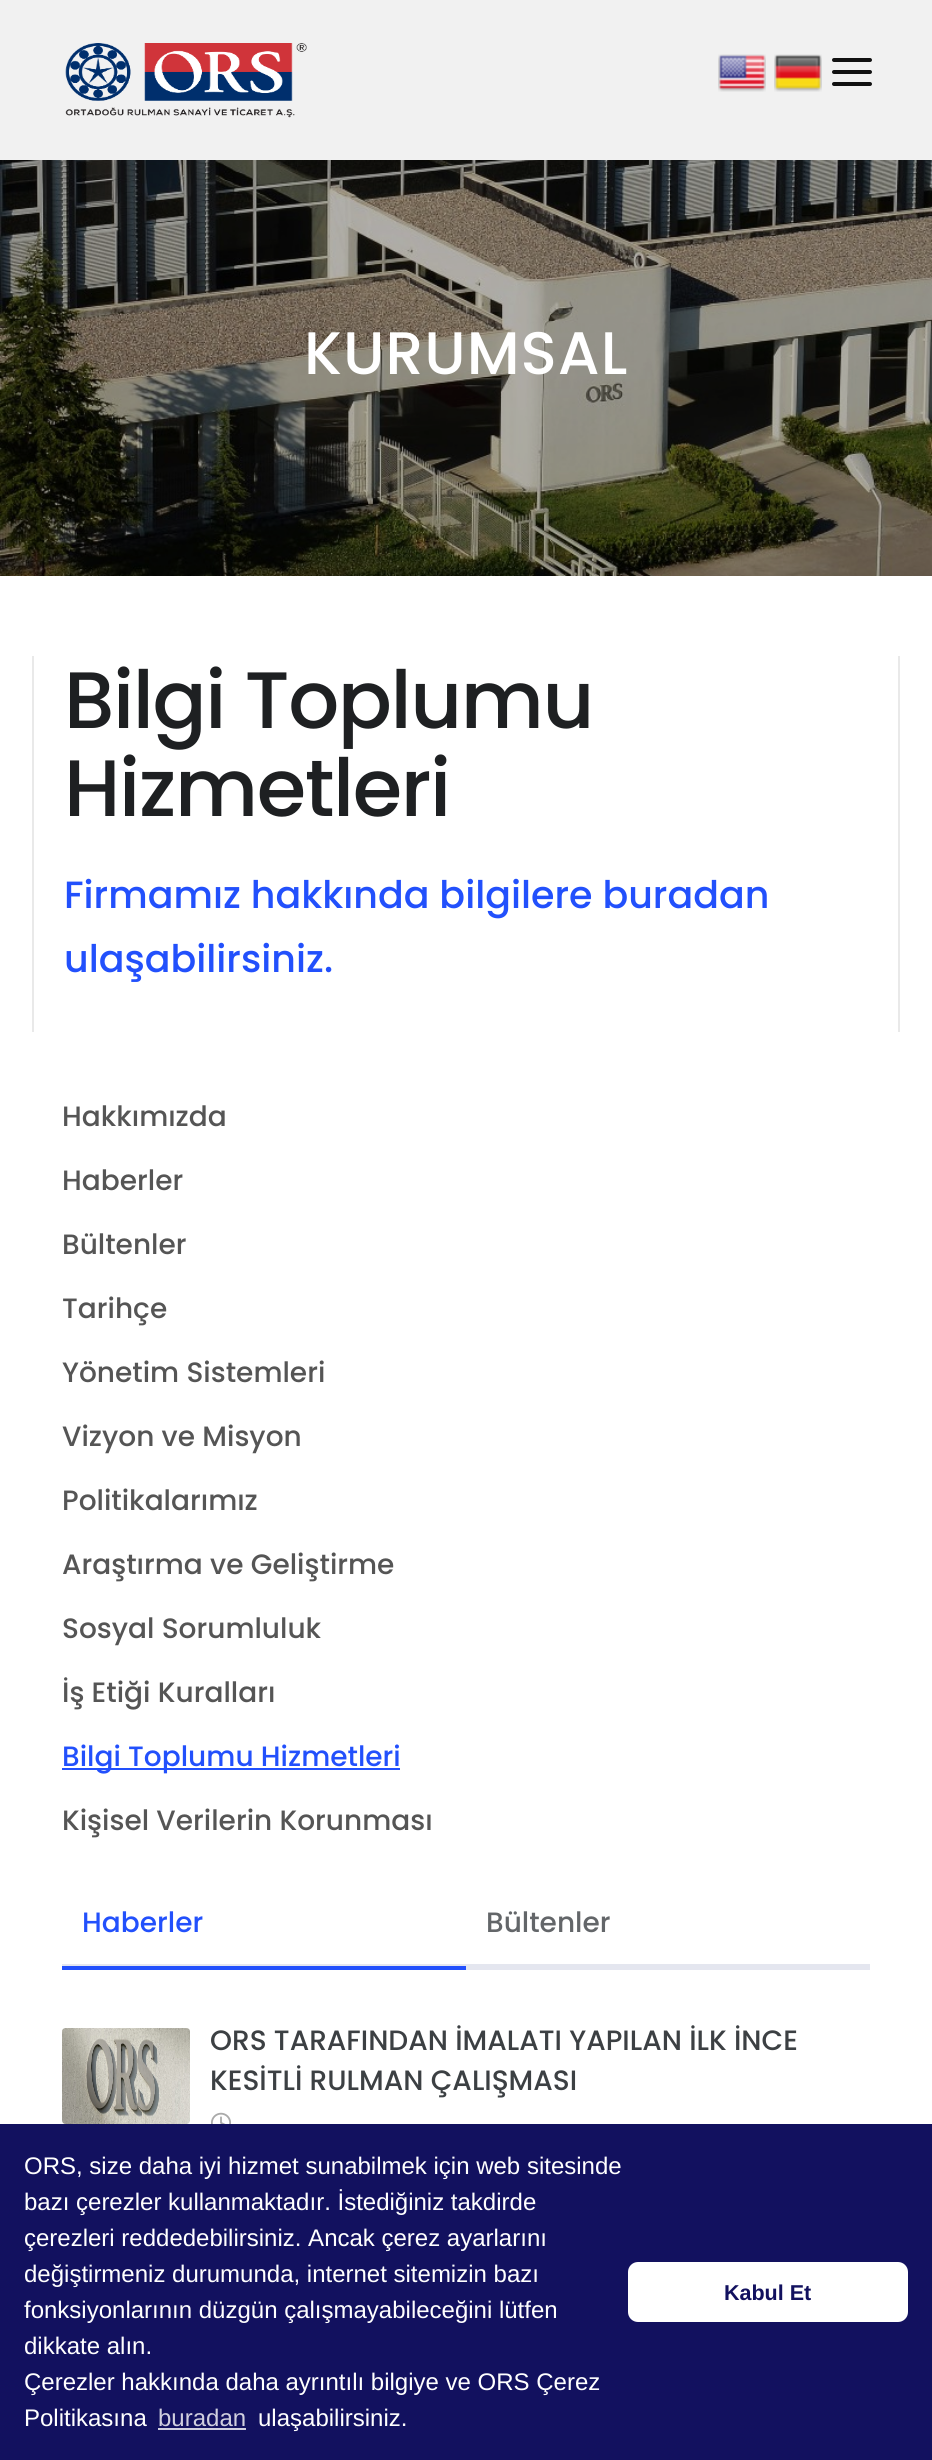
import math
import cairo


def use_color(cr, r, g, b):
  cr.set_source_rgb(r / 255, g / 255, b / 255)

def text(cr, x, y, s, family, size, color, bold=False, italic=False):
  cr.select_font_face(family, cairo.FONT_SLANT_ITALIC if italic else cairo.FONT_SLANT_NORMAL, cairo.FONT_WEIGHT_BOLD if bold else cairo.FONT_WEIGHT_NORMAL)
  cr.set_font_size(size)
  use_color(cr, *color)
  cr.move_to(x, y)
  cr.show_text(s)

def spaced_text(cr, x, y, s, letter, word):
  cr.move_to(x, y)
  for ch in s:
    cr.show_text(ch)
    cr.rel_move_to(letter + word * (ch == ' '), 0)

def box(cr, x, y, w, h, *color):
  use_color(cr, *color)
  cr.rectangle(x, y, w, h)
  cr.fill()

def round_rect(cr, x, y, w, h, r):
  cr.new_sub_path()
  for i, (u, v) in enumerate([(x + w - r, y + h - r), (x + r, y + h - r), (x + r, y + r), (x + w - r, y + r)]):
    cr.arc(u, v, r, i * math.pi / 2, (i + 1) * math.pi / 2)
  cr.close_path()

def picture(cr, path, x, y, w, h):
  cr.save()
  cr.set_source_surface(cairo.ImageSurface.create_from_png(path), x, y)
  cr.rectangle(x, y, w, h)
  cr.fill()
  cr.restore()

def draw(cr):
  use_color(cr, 255, 255, 255)
  cr.paint()
  box(cr, 0, 0, 932, 160, 241, 241, 241)
  picture(cr, "img_01.png", 65, 43, 242, 75)
  picture(cr, "img_02.png", 718, 54, 48, 38)
  picture(cr, "img_03.png", 774, 54, 48, 38)
  use_color(cr, 17, 17, 17)
  round_rect(cr, 832, 70, 40, 4, 2)
  cr.fill()
  round_rect(cr, 832, 58, 40, 4, 2)
  cr.fill()
  round_rect(cr, 832, 82, 40, 4, 2)
  cr.fill()
  picture(cr, "img_04.png", 0, 160, 932, 416)
  box(cr, 898, 656, 2, 376, 233, 233, 233)
  box(cr, 32, 656, 2, 376, 233, 233, 233)
  box(cr, 62, 1768, 338, 2, 34, 80, 252)
  box(cr, 62, 1964, 808, 2, 228, 230, 239)
  box(cr, 62, 1966, 404, 4, 34, 80, 252)
  box(cr, 466, 1966, 404, 4, 228, 230, 239)
  picture(cr, "img_05.png", 62, 2028, 128, 96)
  picture(cr, "img_06.png", 211, 2112, 20, 12)
  box(cr, 0, 2124, 932, 336, 18, 17, 95)
  box(cr, 158, 2428, 88, 2, 208, 207, 223)
  use_color(cr, 255, 255, 255)
  round_rect(cr, 628, 2262, 280, 60, 10)
  cr.fill()
  cr.select_font_face("Poppins Medium")
  cr.set_font_size(60)
  spaced_text(cr, 304, 374, "KURUMSAL", 1, 0)
  cr.set_font_size(80)
  use_color(cr, 30, 32, 34)
  spaced_text(cr, 64, 728, "Bilgi Toplumu", -1.4, 0)
  spaced_text(cr, 64, 816, "Hizmetleri", -1.4, 0)
  text(cr, 64, 908, "Firmamız hakkında bilgilere buradan", "Poppins Medium", 38, (34, 80, 252))
  text(cr, 64, 972, "ulaşabilirsiniz.", "Poppins Medium", 38, (34, 80, 252))
  text(cr, 62, 1126, "Hakkımızda", "Poppins Medium", 28, (85, 85, 85))
  text(cr, 62, 1190, "Haberler", "Poppins Medium", 28, (85, 85, 85))
  text(cr, 62, 1254, "Bültenler", "Poppins Medium", 28, (85, 85, 85))
  text(cr, 62, 1318, "Tarihçe", "Poppins Medium", 28, (85, 85, 85))
  text(cr, 62, 1382, "Yönetim Sistemleri", "Poppins Medium", 28, (85, 85, 85))
  text(cr, 62, 1446, "Vizyon ve Misyon", "Poppins Medium", 28, (85, 85, 85))
  text(cr, 62, 1510, "Politikalarımız", "Poppins Medium", 28, (85, 85, 85))
  text(cr, 62, 1574, "Araştırma ve Geliştirme", "Poppins Medium", 28, (85, 85, 85))
  text(cr, 62, 1638, "Sosyal Sorumluluk", "Poppins Medium", 28, (85, 85, 85))
  text(cr, 62, 1702, "İş Etiği Kuralları", "Poppins Medium", 28, (85, 85, 85))
  text(cr, 62, 1766, "Bilgi Toplumu Hizmetleri", "Poppins Medium", 28, (34, 80, 252))
  text(cr, 62, 1830, "Kişisel Verilerin Korunması", "Poppins Medium", 28, (85, 85, 85))
  text(cr, 82, 1932, "Haberler", "Poppins Medium", 28, (34, 80, 252))
  text(cr, 486, 1932, "Bültenler", "Poppins Medium", 28, (99, 102, 105))
  text(cr, 210, 2050, "ORS TARAFINDAN İMALATI YAPILAN İLK İNCE", "Poppins Medium", 28, (60, 64, 67))
  text(cr, 210, 2090, "KESİTLİ RULMAN ÇALIŞMASI", "Poppins Medium", 28, (60, 64, 67))
  text(cr, 24, 2174, "ORS, size daha iyi hizmet sunabilmek için web sitesinde", "Liberation Sans", 24, (255, 255, 255))
  text(cr, 24, 2210, "bazı çerezler kullanmaktadır. İstediğiniz takdirde", "Liberation Sans", 24, (255, 255, 255))
  text(cr, 24, 2246, "çerezleri reddedebilirsiniz. Ancak çerez ayarlarını", "Liberation Sans", 24, (255, 255, 255))
  text(cr, 24, 2282, "değiştirmeniz durumunda, internet sitemizin bazı", "Liberation Sans", 24, (255, 255, 255))
  text(cr, 24, 2318, "fonksiyonlarının düzgün çalışmayabileceğini lütfen", "Liberation Sans", 24, (255, 255, 255))
  text(cr, 24, 2354, "dikkate alın.", "Liberation Sans", 24, (255, 255, 255))
  text(cr, 24, 2390, "Çerezler hakkında daha ayrıntılı bilgiye ve ORS Çerez", "Liberation Sans", 24, (255, 255, 255))
  text(cr, 24, 2426, "Politikasına", "Liberation Sans", 24, (255, 255, 255))
  text(cr, 158, 2426, "buradan", "Liberation Sans", 24, (208, 207, 223))
  text(cr, 258, 2426, "ulaşabilirsiniz.", "Liberation Sans", 24, (255, 255, 255))
  text(cr, 724, 2300, "Kabul Et", "Liberation Sans", 21.5, (18, 17, 95), bold=True)


surface = cairo.ImageSurface(cairo.FORMAT_RGB24, 932, 2460)
cr = cairo.Context(surface)
options = cairo.FontOptions()
options.set_hint_metrics(cairo.HINT_METRICS_OFF)
options.set_hint_style(cairo.HINT_STYLE_NONE)
cr.set_font_options(options)
cr.set_miter_limit(4)
draw(cr)
surface.write_to_png("out.png")
